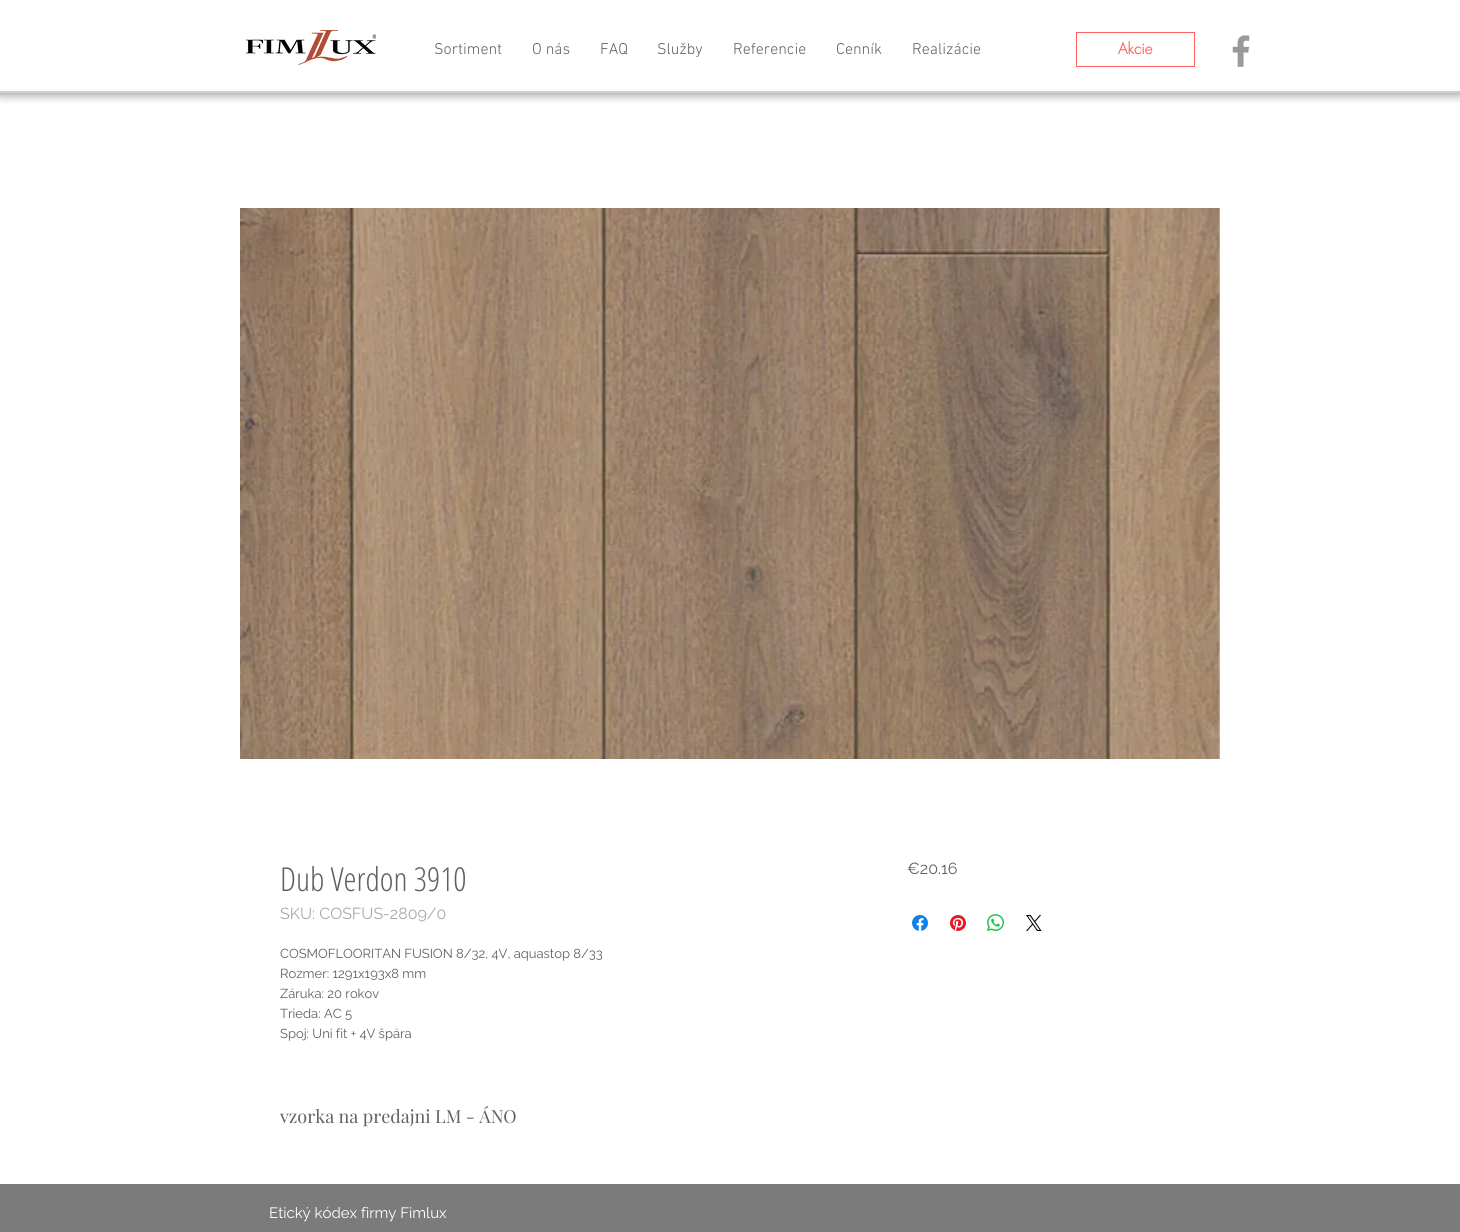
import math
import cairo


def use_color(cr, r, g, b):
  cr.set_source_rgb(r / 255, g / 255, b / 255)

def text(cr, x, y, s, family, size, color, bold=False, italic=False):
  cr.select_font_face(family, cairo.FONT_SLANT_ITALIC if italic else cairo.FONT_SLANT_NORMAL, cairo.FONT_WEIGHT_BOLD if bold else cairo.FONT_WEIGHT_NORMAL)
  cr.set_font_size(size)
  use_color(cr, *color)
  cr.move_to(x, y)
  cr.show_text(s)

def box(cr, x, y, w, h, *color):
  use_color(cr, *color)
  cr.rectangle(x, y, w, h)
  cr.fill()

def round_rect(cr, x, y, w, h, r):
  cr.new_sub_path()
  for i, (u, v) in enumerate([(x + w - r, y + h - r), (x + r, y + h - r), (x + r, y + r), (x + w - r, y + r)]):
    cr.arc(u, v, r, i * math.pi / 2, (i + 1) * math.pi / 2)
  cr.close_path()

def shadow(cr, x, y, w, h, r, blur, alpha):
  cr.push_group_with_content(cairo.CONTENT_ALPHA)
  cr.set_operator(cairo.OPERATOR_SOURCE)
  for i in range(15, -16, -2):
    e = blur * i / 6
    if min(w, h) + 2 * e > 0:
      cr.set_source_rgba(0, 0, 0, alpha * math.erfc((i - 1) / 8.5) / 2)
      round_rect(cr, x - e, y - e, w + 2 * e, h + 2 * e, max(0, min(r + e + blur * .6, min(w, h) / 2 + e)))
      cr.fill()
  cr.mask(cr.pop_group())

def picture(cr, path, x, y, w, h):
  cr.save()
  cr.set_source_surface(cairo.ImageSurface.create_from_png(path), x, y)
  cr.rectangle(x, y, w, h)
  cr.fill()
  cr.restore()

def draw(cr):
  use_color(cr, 255, 255, 255)
  cr.paint()
  cr.save()
  cr.rectangle(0, 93, 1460, 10)
  cr.clip()
  use_color(cr, 0, 0, 0)
  shadow(cr, 0, 1, 1460, 93, 0, 5.5, 0.47)
  cr.restore()
  box(cr, 0, 91, 1460, 2, 207, 207, 207)
  picture(cr, "img_01.png", 246, 30, 130, 35)
  cr.rectangle(1076.5, 32.5, 118, 34)
  use_color(cr, 255, 97, 97)
  cr.set_line_width(1)
  cr.stroke()
  picture(cr, "img_02.png", 1232, 35, 18, 32)
  picture(cr, "img_03.png", 240, 208, 980, 551)
  picture(cr, "img_04.png", 912, 915, 16, 16)
  picture(cr, "img_05.png", 950, 915, 16, 16)
  picture(cr, "img_06.png", 987, 914, 17, 17)
  picture(cr, "img_07.png", 1026, 915, 16, 16)
  box(cr, 0, 1184, 1460, 48, 123, 123, 123)
  text(cr, 434, 54, "Sortiment", "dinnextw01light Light", 16, (96, 96, 96))
  text(cr, 532, 54, "O nás", "dinnextw01light Light", 16, (96, 96, 96))
  text(cr, 600, 54, "FAQ", "dinnextw01light Light", 16, (96, 96, 96))
  text(cr, 657, 54, "Služby", "dinnextw01light Light", 16, (96, 96, 96))
  text(cr, 733, 54, "Referencie", "dinnextw01light Light", 16, (96, 96, 96))
  text(cr, 836, 54, "Cenník", "dinnextw01light Light", 16, (96, 96, 96))
  text(cr, 912, 54, "Realizácie", "dinnextw01light Light", 16, (96, 96, 96))
  text(cr, 1118, 54, "Akcie", "futura", 15, (255, 97, 97), bold=True)
  text(cr, 280, 891, "Dub Verdon 3910", "Open Sans Condensed Light", 33, (96, 96, 96))
  text(cr, 280, 919, "SKU: COSFUS-2809/0", "Raleway", 16, (168, 168, 168))
  text(cr, 280, 958, "COSMOFLOORITAN FUSION 8/32, 4V, aquastop 8/33", "Raleway", 13, (96, 96, 96))
  text(cr, 280, 978, "Rozmer: 1291x193x8 mm", "Raleway", 13, (96, 96, 96))
  text(cr, 280, 998, "Záruka: 20 rokov", "Raleway", 13, (96, 96, 96))
  text(cr, 280, 1018, "Trieda: AC 5", "Raleway", 13, (96, 96, 96))
  text(cr, 280, 1038, "Spoj: Uni fit + 4V špára", "Raleway", 13, (96, 96, 96))
  text(cr, 280, 1123, "vzorka na predajni LM - ÁNO", "Playfair Display", 18, (96, 96, 96))
  text(cr, 907, 874, "€20.16", "Raleway", 16, (96, 96, 96))
  text(cr, 269, 1218, "Etický kódex firmy Fimlux", "Raleway", 15, (255, 255, 255))


surface = cairo.ImageSurface(cairo.FORMAT_RGB24, 1460, 1232)
cr = cairo.Context(surface)
options = cairo.FontOptions()
options.set_hint_metrics(cairo.HINT_METRICS_OFF)
options.set_hint_style(cairo.HINT_STYLE_NONE)
cr.set_font_options(options)
cr.set_miter_limit(4)
draw(cr)
surface.write_to_png("out.png")
